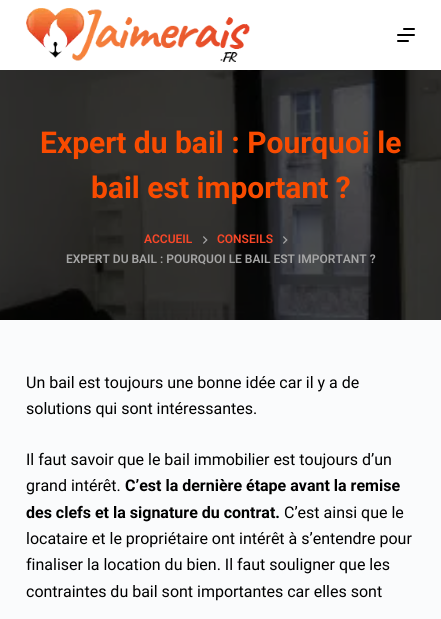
import math
import cairo


def use_color(cr, r, g, b):
  cr.set_source_rgb(r / 255, g / 255, b / 255)

def text(cr, x, y, s, family, size, color, bold=False, italic=False):
  cr.select_font_face(family, cairo.FONT_SLANT_ITALIC if italic else cairo.FONT_SLANT_NORMAL, cairo.FONT_WEIGHT_BOLD if bold else cairo.FONT_WEIGHT_NORMAL)
  cr.set_font_size(size)
  use_color(cr, *color)
  cr.move_to(x, y)
  cr.show_text(s)

def box(cr, x, y, w, h, *color):
  use_color(cr, *color)
  cr.rectangle(x, y, w, h)
  cr.fill()

def round_rect(cr, x, y, w, h, r):
  cr.new_sub_path()
  for i, (u, v) in enumerate([(x + w - r, y + h - r), (x + r, y + h - r), (x + r, y + r), (x + w - r, y + r)]):
    cr.arc(u, v, r, i * math.pi / 2, (i + 1) * math.pi / 2)
  cr.close_path()

def picture(cr, path, x, y, w, h):
  cr.save()
  cr.set_source_surface(cairo.ImageSurface.create_from_png(path), x, y)
  cr.rectangle(x, y, w, h)
  cr.fill()
  cr.restore()

def draw(cr):
  use_color(cr, 250, 251, 252)
  cr.paint()
  box(cr, 0, 0, 441, 70, 255, 255, 255)
  picture(cr, "img_01.png", 26, 8, 224, 54)
  use_color(cr, 0, 0, 0)
  round_rect(cr, 403, 28, 12, 2, 1)
  cr.fill()
  round_rect(cr, 397, 34, 18, 2, 1)
  cr.fill()
  round_rect(cr, 397, 40, 12, 2, 1)
  cr.fill()
  picture(cr, "img_02.png", 0, 70, 441, 250)
  picture(cr, "img_03.png", 203, 236, 5, 8)
  picture(cr, "img_04.png", 283, 236, 5, 8)
  text(cr, 40, 153, "Expert du bail : Pourquoi le", "Roboto", 30, (249, 75, 0), bold=True)
  text(cr, 91, 198, "bail est important ?", "Roboto", 30, (249, 75, 0), bold=True)
  text(cr, 144, 243, "ACCUEIL", "Roboto SemiBold", 12, (250, 71, 40))
  text(cr, 217, 243, "CONSEILS", "Roboto SemiBold", 12, (250, 71, 40))
  text(cr, 66, 263, "EXPERT DU BAIL : POURQUOI LE BAIL EST IMPORTANT ?", "Roboto SemiBold", 12, (165, 165, 165))
  text(cr, 26, 388, "Un bail est toujours une bonne idée car il y a de", "Roboto", 16, (0, 0, 0))
  text(cr, 26, 414, "solutions qui sont intéressantes.", "Roboto", 16, (0, 0, 0))
  text(cr, 26, 465, "Il faut savoir que le bail immobilier est toujours d’un", "Roboto", 16, (0, 0, 0))
  text(cr, 26, 491, "grand intérêt.", "Roboto", 16, (0, 0, 0))
  text(cr, 125, 491, "C’est la dernière étape avant la remise", "Roboto", 16, (0, 0, 0), bold=True)
  text(cr, 26, 518, "des clefs et la signature du contrat.", "Roboto", 16, (0, 0, 0), bold=True)
  text(cr, 284, 518, "C’est ainsi que le", "Roboto", 16, (0, 0, 0))
  text(cr, 26, 544, "locataire et le propriétaire ont intérêt à s’entendre pour", "Roboto", 16, (0, 0, 0))
  text(cr, 26, 570, "finaliser la location du bien. Il faut souligner que les", "Roboto", 16, (0, 0, 0))
  text(cr, 26, 597, "contraintes du bail sont importantes car elles sont", "Roboto", 16, (0, 0, 0))


surface = cairo.ImageSurface(cairo.FORMAT_RGB24, 441, 619)
cr = cairo.Context(surface)
options = cairo.FontOptions()
options.set_hint_metrics(cairo.HINT_METRICS_OFF)
options.set_hint_style(cairo.HINT_STYLE_NONE)
cr.set_font_options(options)
cr.set_miter_limit(4)
draw(cr)
surface.write_to_png("out.png")
